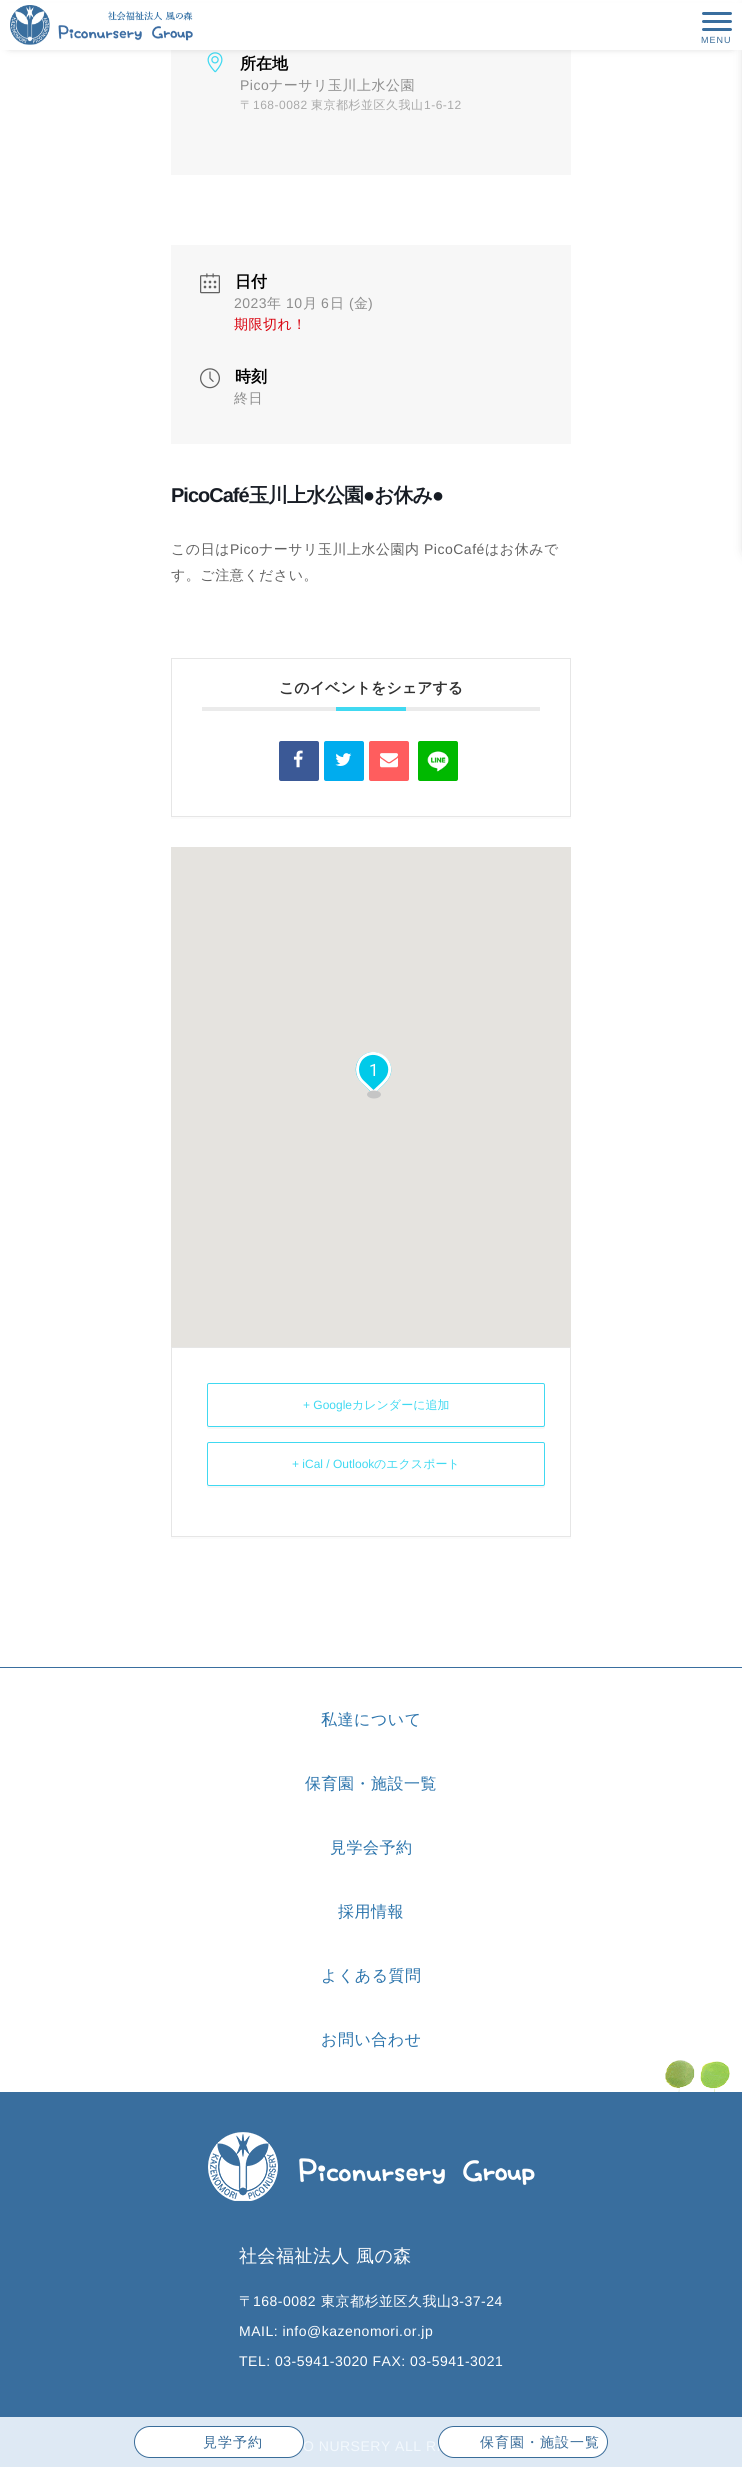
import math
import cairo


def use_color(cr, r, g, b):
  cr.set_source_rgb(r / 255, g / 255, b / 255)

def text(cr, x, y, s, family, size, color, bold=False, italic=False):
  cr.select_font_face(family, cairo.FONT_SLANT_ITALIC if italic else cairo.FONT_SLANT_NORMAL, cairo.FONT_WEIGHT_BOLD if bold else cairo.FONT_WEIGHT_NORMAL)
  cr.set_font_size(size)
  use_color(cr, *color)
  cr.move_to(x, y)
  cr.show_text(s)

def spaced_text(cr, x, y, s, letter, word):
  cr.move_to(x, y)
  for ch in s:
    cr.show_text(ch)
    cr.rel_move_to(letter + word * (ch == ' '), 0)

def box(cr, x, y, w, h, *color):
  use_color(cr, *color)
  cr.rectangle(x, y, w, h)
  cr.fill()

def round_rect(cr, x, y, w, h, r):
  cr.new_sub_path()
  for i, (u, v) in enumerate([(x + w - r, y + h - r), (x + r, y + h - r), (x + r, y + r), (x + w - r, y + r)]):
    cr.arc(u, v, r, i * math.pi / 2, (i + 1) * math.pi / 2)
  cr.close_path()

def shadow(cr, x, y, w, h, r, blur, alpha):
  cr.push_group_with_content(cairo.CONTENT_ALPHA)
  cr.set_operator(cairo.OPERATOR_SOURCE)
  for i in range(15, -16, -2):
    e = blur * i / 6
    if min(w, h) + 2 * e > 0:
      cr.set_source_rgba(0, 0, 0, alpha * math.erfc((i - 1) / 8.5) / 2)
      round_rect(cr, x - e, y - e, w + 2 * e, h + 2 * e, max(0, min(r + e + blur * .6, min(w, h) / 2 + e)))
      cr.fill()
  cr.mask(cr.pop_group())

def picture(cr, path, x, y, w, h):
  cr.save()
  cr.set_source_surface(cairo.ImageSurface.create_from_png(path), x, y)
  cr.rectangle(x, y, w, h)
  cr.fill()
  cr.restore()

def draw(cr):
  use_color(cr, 255, 255, 255)
  cr.paint()
  box(cr, 171, 50, 400, 125, 247, 247, 247)
  picture(cr, "img_02.png", 207, 52, 16, 21)
  use_color(cr, 102, 102, 102)
  shadow(cr, 10, 14, 722, 30, 0, 5, 1)
  shadow(cr, 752, 10, 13, 541, 0, 7.5, 1)
  box(cr, 0, 3, 742, 47, 255, 255, 255)
  picture(cr, "img_01.png", 10, 5, 183, 40)
  use_color(cr, 57, 110, 158)
  round_rect(cr, 702, 12, 30, 3, 1.5)
  cr.fill()
  round_rect(cr, 702, 20, 30, 3, 1.5)
  cr.fill()
  round_rect(cr, 702, 28, 30, 3, 1.5)
  cr.fill()
  box(cr, 171, 245, 400, 199, 247, 247, 247)
  picture(cr, "img_03.png", 200, 273, 20, 21)
  picture(cr, "img_04.png", 200, 368, 20, 21)
  box(cr, 171, 817, 400, 2, 251, 251, 251)
  cr.rectangle(171.5, 658.5, 399, 158)
  use_color(cr, 230, 230, 230)
  cr.set_line_width(1)
  cr.stroke()
  box(cr, 202, 707, 338, 4, 235, 235, 235)
  box(cr, 336, 707, 70, 4, 64, 217, 241)
  use_color(cr, 59, 89, 150)
  round_rect(cr, 279, 741, 40, 40, 2)
  cr.fill()
  picture(cr, "img_05.png", 293, 750, 10, 18)
  use_color(cr, 0, 172, 238)
  round_rect(cr, 324, 741, 40, 40, 2)
  cr.fill()
  picture(cr, "img_06.png", 335, 753, 17, 13)
  use_color(cr, 255, 93, 94)
  round_rect(cr, 369, 741, 40, 40, 2)
  cr.fill()
  picture(cr, "img_07.png", 380, 753, 18, 15)
  use_color(cr, 0, 185, 0)
  round_rect(cr, 418, 741, 40, 40, 2)
  cr.fill()
  picture(cr, "img_08.png", 427, 750, 22, 22)
  box(cr, 171, 847, 400, 500, 229, 227, 223)
  use_color(cr, 0, 202, 233)
  cr.new_path()
  cr.move_to(361, 1057)
  cr.curve_to(374, 1044, 397, 1059, 390, 1076)
  cr.curve_to(387, 1083, 379, 1089, 373, 1094)
  cr.line_to(361, 1082)
  cr.curve_to(354, 1075, 354, 1064, 361, 1057)
  cr.close_path()
  cr.fill()
  cr.new_path()
  cr.move_to(362, 1058)
  cr.curve_to(374.5, 1046, 395, 1059.5, 388.5, 1075.5)
  cr.curve_to(386, 1081.5, 378, 1087.5, 373.5, 1092)
  cr.line_to(362, 1081)
  cr.curve_to(356, 1074.5, 356, 1064.5, 362, 1058)
  cr.close_path()
  use_color(cr, 255, 255, 255)
  cr.set_line_width(3)
  cr.stroke()
  use_color(cr, 197, 197, 197)
  cr.new_path()
  cr.move_to(374, 1090.5)
  cr.curve_to(378, 1090.5, 381, 1092.5, 381, 1094.5)
  cr.curve_to(381, 1096.5, 378, 1098.5, 374, 1098.5)
  cr.curve_to(370, 1098.5, 367, 1096.5, 367, 1094.5)
  cr.curve_to(367, 1092.5, 370, 1090.5, 374, 1090.5)
  cr.close_path()
  cr.fill()
  box(cr, 171, 1537, 400, 2, 251, 251, 251)
  cr.rectangle(171.5, 1347.5, 399, 189)
  use_color(cr, 230, 230, 230)
  cr.set_line_width(1)
  cr.stroke()
  use_color(cr, 247, 247, 247)
  cr.new_path()
  cr.move_to(207, 1425)
  cr.line_to(207, 1427)
  cr.curve_to(207, 1428, 208, 1429, 209, 1429)
  cr.line_to(543, 1429)
  cr.curve_to(544, 1429, 545, 1428, 545, 1427)
  cr.line_to(545, 1425)
  cr.curve_to(545, 1426, 544, 1427, 543, 1427)
  cr.line_to(209, 1427)
  cr.curve_to(208, 1427, 207, 1426, 207, 1425)
  cr.close_path()
  cr.fill()
  round_rect(cr, 207.5, 1383.5, 337, 43, 1.5)
  use_color(cr, 64, 217, 241)
  cr.stroke()
  use_color(cr, 247, 247, 247)
  cr.new_path()
  cr.move_to(207, 1484)
  cr.line_to(207, 1486)
  cr.curve_to(207, 1487, 208, 1488, 209, 1488)
  cr.line_to(543, 1488)
  cr.curve_to(544, 1488, 545, 1487, 545, 1486)
  cr.line_to(545, 1484)
  cr.curve_to(545, 1485, 544, 1486, 543, 1486)
  cr.line_to(209, 1486)
  cr.curve_to(208, 1486, 207, 1485, 207, 1484)
  cr.close_path()
  cr.fill()
  round_rect(cr, 207.5, 1442.5, 337, 43, 1.5)
  use_color(cr, 64, 217, 241)
  cr.stroke()
  box(cr, 0, 1667, 742, 750, 57, 110, 158)
  box(cr, 0, 2417, 742, 50, 222, 233, 244)
  box(cr, 0, 1668, 742, 424, 255, 255, 255)
  picture(cr, "img_09.png", 665, 2060, 65, 32)
  picture(cr, "img_10.png", 208, 2132, 327, 69)
  cr.select_font_face("Liberation Sans")
  cr.set_font_size(9)
  use_color(cr, 57, 108, 153)
  spaced_text(cr, 701, 43, "MENU", 1, 0)
  text(cr, 240, 69, "所在地", "WenQuanYi Zen Hei", 16, (0, 0, 0), bold=True)
  cr.select_font_face("Liberation Sans")
  cr.set_font_size(14)
  use_color(cr, 141, 141, 141)
  spaced_text(cr, 240, 90, "Pico", 0.5, 0)
  cr.select_font_face("WenQuanYi Zen Hei Medium")
  spaced_text(cr, 269, 90, "ナーサリ玉川上水公園", 0.5, 0)
  cr.set_font_size(12)
  use_color(cr, 169, 169, 169)
  spaced_text(cr, 240, 109, "〒", 0.5, 0)
  cr.select_font_face("Liberation Sans")
  spaced_text(cr, 253, 109, "168-0082", 0.5, 0)
  cr.select_font_face("WenQuanYi Zen Hei Medium")
  spaced_text(cr, 311, 109, "東京都杉並区久我山", 0.5, 0)
  cr.select_font_face("Liberation Sans")
  spaced_text(cr, 424, 109, "1-6-12", 0.5, 0)
  text(cr, 235, 287, "日付", "WenQuanYi Zen Hei", 16, (0, 0, 0), bold=True)
  cr.select_font_face("Liberation Sans")
  cr.set_font_size(14)
  use_color(cr, 141, 141, 141)
  spaced_text(cr, 234, 308, "2023", 0.5, 0)
  cr.select_font_face("WenQuanYi Zen Hei Medium")
  spaced_text(cr, 267, 308, "年", 0.5, 0)
  cr.select_font_face("Liberation Sans")
  spaced_text(cr, 286, 308, "10", 0.5, 0)
  cr.select_font_face("WenQuanYi Zen Hei Medium")
  spaced_text(cr, 303, 308, "月", 0.5, 0)
  cr.select_font_face("Liberation Sans")
  spaced_text(cr, 321, 308, "6", 0.5, 0)
  cr.select_font_face("WenQuanYi Zen Hei Medium")
  spaced_text(cr, 330, 308, "日", 0.5, 0)
  cr.select_font_face("Liberation Sans")
  spaced_text(cr, 349, 308, "(", 0.5, 0)
  cr.select_font_face("WenQuanYi Zen Hei Medium")
  spaced_text(cr, 354, 308, "金", 0.5, 0)
  cr.select_font_face("Liberation Sans")
  spaced_text(cr, 368, 308, ")", 0.5, 0)
  cr.select_font_face("WenQuanYi Zen Hei Medium")
  use_color(cr, 216, 0, 12)
  spaced_text(cr, 234, 329, "期限切れ！", 0.5, 0)
  text(cr, 235, 382, "時刻", "WenQuanYi Zen Hei", 16, (0, 0, 0), bold=True)
  cr.select_font_face("WenQuanYi Zen Hei Medium")
  cr.set_font_size(14)
  use_color(cr, 141, 141, 141)
  spaced_text(cr, 234, 403, "終日", 0.5, 0)
  cr.select_font_face("Liberation Sans", cairo.FONT_SLANT_NORMAL, cairo.FONT_WEIGHT_BOLD)
  cr.set_font_size(20)
  use_color(cr, 23, 28, 36)
  spaced_text(cr, 171, 502, "PicoCafé", -1, 0)
  cr.select_font_face("WenQuanYi Zen Hei", cairo.FONT_SLANT_NORMAL, cairo.FONT_WEIGHT_BOLD)
  spaced_text(cr, 249, 502, "玉川上水公園", -1, 0)
  cr.select_font_face("Liberation Sans", cairo.FONT_SLANT_NORMAL, cairo.FONT_WEIGHT_BOLD)
  spaced_text(cr, 363, 502, "●", -1, 0)
  cr.select_font_face("WenQuanYi Zen Hei", cairo.FONT_SLANT_NORMAL, cairo.FONT_WEIGHT_BOLD)
  spaced_text(cr, 374, 502, "お休み", -1, 0)
  cr.select_font_face("Liberation Sans", cairo.FONT_SLANT_NORMAL, cairo.FONT_WEIGHT_BOLD)
  spaced_text(cr, 432, 502, "●", -1, 0)
  cr.select_font_face("WenQuanYi Zen Hei Medium")
  cr.set_font_size(14)
  use_color(cr, 97, 97, 97)
  spaced_text(cr, 171, 554, "この日は", 0.5, 0)
  cr.select_font_face("Liberation Sans")
  spaced_text(cr, 230, 554, "Pico", 0.5, 0)
  cr.select_font_face("WenQuanYi Zen Hei Medium")
  spaced_text(cr, 259, 554, "ナーサリ玉川上水公園内", 0.5, 0)
  cr.select_font_face("Liberation Sans")
  spaced_text(cr, 424, 554, "PicoCafé", 0.5, 0)
  cr.select_font_face("WenQuanYi Zen Hei Medium")
  spaced_text(cr, 485, 554, "はお休みで", 0.5, 0)
  spaced_text(cr, 171, 580, "す。ご注意ください。", 0.5, 0)
  text(cr, 279, 693, "このイベントをシェアする", "WenQuanYi Zen Hei", 15, (49, 49, 49), bold=True)
  cr.select_font_face("Roboto")
  cr.set_font_size(17)
  use_color(cr, 255, 255, 255)
  spaced_text(cr, 369, 1076, "1", 0.5, 0)
  text(cr, 303, 1409, "+ Google", "Liberation Sans", 12, (64, 217, 241))
  text(cr, 352, 1409, "カレンダーに追加", "WenQuanYi Zen Hei Medium", 12, (64, 217, 241))
  text(cr, 292, 1468, "+ iCal / Outlook", "Liberation Sans", 12, (64, 217, 241))
  text(cr, 374, 1468, "のエクスポート", "WenQuanYi Zen Hei Medium", 12, (64, 217, 241))
  cr.set_font_size(16)
  use_color(cr, 43, 116, 172)
  spaced_text(cr, 321, 1725, "私達について", 0.5, 0)
  spaced_text(cr, 305, 1789, "保育園・施設一覧", 0.5, 0)
  spaced_text(cr, 330, 1853, "見学会予約", 0.5, 0)
  spaced_text(cr, 338, 1917, "採用情報", 0.5, 0)
  spaced_text(cr, 321, 1981, "よくある質問", 0.5, 0)
  spaced_text(cr, 321, 2045, "お問い合わせ", 0.5, 0)
  cr.set_font_size(18)
  use_color(cr, 255, 255, 255)
  spaced_text(cr, 239, 2262, "社会福祉法人 風の森", 0.5, 0)
  cr.set_font_size(14)
  spaced_text(cr, 239, 2306, "〒", 0.5, 0)
  cr.select_font_face("Liberation Sans")
  spaced_text(cr, 253, 2306, "168-0082", 0.5, 0)
  cr.select_font_face("WenQuanYi Zen Hei Medium")
  spaced_text(cr, 321, 2306, "東京都杉並区久我山", 0.5, 0)
  cr.select_font_face("Liberation Sans")
  spaced_text(cr, 451, 2306, "3-37-24", 0.5, 0)
  spaced_text(cr, 239, 2336, "MAIL: info@kazenomori.or.jp", 0.5, 0)
  spaced_text(cr, 239, 2366, "TEL: 03-5941-3020 FAX: 03-5941-3021", 0.5, 0)
  use_color(cr, 242, 248, 253)
  spaced_text(cr, 303, 2451, "O NURSERY ALL RI", 0.5, 0)
  use_color(cr, 255, 255, 255)
  round_rect(cr, 438.5, 2426.5, 169, 31, 15.5)
  cr.fill_preserve()
  use_color(cr, 58, 109, 154)
  cr.stroke()
  cr.select_font_face("WenQuanYi Zen Hei Medium")
  use_color(cr, 57, 108, 153)
  spaced_text(cr, 480, 2447, "保育園・施設一覧", 1, 0)
  use_color(cr, 255, 255, 255)
  round_rect(cr, 134.5, 2426.5, 169, 31, 15.5)
  cr.fill_preserve()
  use_color(cr, 58, 109, 154)
  cr.stroke()
  use_color(cr, 57, 108, 153)
  spaced_text(cr, 203, 2447, "見学予約", 1, 0)


surface = cairo.ImageSurface(cairo.FORMAT_RGB24, 742, 2467)
cr = cairo.Context(surface)
options = cairo.FontOptions()
options.set_hint_metrics(cairo.HINT_METRICS_OFF)
options.set_hint_style(cairo.HINT_STYLE_NONE)
cr.set_font_options(options)
cr.set_miter_limit(4)
draw(cr)
surface.write_to_png("out.png")
